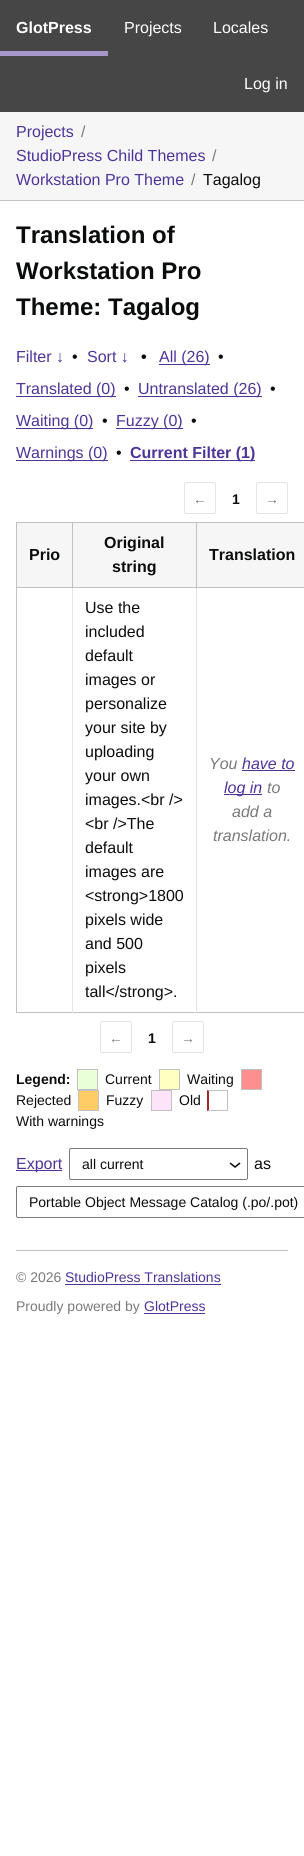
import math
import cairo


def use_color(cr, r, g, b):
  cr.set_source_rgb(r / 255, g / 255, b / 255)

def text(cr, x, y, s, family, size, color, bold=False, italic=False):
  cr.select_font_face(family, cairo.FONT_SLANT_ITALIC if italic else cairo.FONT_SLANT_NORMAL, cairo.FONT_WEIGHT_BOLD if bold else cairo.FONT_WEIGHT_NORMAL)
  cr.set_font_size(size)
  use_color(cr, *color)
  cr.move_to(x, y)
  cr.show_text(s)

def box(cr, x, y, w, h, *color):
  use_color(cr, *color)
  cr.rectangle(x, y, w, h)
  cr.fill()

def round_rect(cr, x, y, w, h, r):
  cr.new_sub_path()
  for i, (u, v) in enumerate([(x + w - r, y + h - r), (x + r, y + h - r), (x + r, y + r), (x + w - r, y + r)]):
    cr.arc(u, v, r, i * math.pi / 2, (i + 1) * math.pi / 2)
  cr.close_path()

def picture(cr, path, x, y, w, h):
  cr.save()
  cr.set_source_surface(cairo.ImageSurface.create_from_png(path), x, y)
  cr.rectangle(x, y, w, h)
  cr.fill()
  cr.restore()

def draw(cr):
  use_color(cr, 255, 255, 255)
  cr.paint()
  box(cr, 0, 0, 304, 112, 70, 70, 70)
  box(cr, 0, 51, 108, 5, 165, 151, 201)
  box(cr, 0, 112, 304, 88, 246, 246, 246)
  box(cr, 0, 200, 304, 1, 193, 193, 193)
  box(cr, 159, 364, 51, 1, 78, 52, 153)
  box(cr, 16, 396, 100, 1, 78, 52, 153)
  box(cr, 138, 396, 124, 1, 78, 52, 153)
  box(cr, 16, 428, 77, 1, 78, 52, 153)
  box(cr, 116, 428, 67, 1, 78, 52, 153)
  box(cr, 16, 460, 92, 1, 78, 52, 153)
  box(cr, 130, 460, 125, 1, 78, 52, 153)
  round_rect(cr, 184.5, 482.5, 31, 31, 1.5)
  use_color(cr, 228, 228, 228)
  cr.set_line_width(1)
  cr.stroke()
  round_rect(cr, 256.5, 482.5, 31, 31, 1.5)
  cr.stroke()
  box(cr, 16, 522, 288, 1, 193, 193, 193)
  box(cr, 16, 1012, 288, 1, 193, 193, 193)
  box(cr, 16, 522, 1, 491, 193, 193, 193)
  box(cr, 17, 523, 55, 64, 246, 246, 246)
  box(cr, 196, 587, 1, 426, 228, 228, 228)
  box(cr, 196, 587, 108, 1, 193, 193, 193)
  box(cr, 196, 522, 1, 66, 193, 193, 193)
  box(cr, 72, 587, 1, 426, 228, 228, 228)
  box(cr, 72, 587, 125, 1, 193, 193, 193)
  box(cr, 72, 522, 1, 66, 193, 193, 193)
  box(cr, 16, 587, 57, 1, 193, 193, 193)
  box(cr, 73, 523, 123, 64, 246, 246, 246)
  box(cr, 197, 523, 107, 64, 246, 246, 246)
  box(cr, 242, 770, 53, 1, 78, 52, 153)
  box(cr, 224, 794, 38, 1, 78, 52, 153)
  round_rect(cr, 100.5, 1021.5, 31, 31, 1.5)
  use_color(cr, 228, 228, 228)
  cr.stroke()
  round_rect(cr, 172.5, 1021.5, 31, 31, 1.5)
  cr.stroke()
  use_color(cr, 233, 255, 216)
  cr.rectangle(77.5, 1069.5, 20, 20)
  cr.fill_preserve()
  use_color(cr, 193, 193, 193)
  cr.stroke()
  use_color(cr, 255, 255, 194)
  cr.rectangle(159.5, 1069.5, 20, 20)
  cr.fill_preserve()
  use_color(cr, 193, 193, 193)
  cr.stroke()
  use_color(cr, 255, 142, 142)
  cr.rectangle(241.5, 1069.5, 20, 20)
  cr.fill_preserve()
  use_color(cr, 193, 193, 193)
  cr.stroke()
  use_color(cr, 255, 204, 102)
  cr.rectangle(78.5, 1090.5, 20, 20)
  cr.fill_preserve()
  use_color(cr, 193, 193, 193)
  cr.stroke()
  use_color(cr, 254, 228, 248)
  cr.rectangle(151.5, 1090.5, 20, 20)
  cr.fill_preserve()
  use_color(cr, 193, 193, 193)
  cr.stroke()
  cr.new_path()
  cr.move_to(207, 1090)
  cr.line_to(228, 1090)
  cr.line_to(227, 1091)
  cr.line_to(209, 1091)
  cr.close_path()
  cr.fill()
  box(cr, 227, 1090, 1, 21, 193, 193, 193)
  cr.new_path()
  cr.move_to(228, 1111)
  cr.line_to(207, 1111)
  cr.line_to(209, 1110)
  cr.line_to(227, 1110)
  cr.close_path()
  cr.fill()
  use_color(cr, 166, 38, 38)
  cr.new_path()
  cr.move_to(207, 1111)
  cr.line_to(207, 1090)
  cr.line_to(209, 1091)
  cr.line_to(209, 1110)
  cr.close_path()
  cr.fill()
  box(cr, 16, 1170, 46, 1, 78, 52, 153)
  picture(cr, "img_01.png", 229, 1162, 12, 6)
  round_rect(cr, 69.5, 1148.5, 178, 31, 1.5)
  use_color(cr, 122, 122, 122)
  cr.stroke()
  round_rect(cr, 16.5, 1186.5, 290, 31, 1.5)
  cr.stroke()
  box(cr, 16, 1250, 272, 1, 193, 193, 193)
  box(cr, 65, 1284, 156, 1, 78, 52, 153)
  box(cr, 144, 1313, 61, 1, 78, 52, 153)
  text(cr, 16, 33, "GlotPress", "Liberation Sans", 16, (255, 255, 255), bold=True)
  text(cr, 124, 33, "Projects", "Liberation Sans", 16, (255, 255, 255))
  text(cr, 213, 33, "Locales", "Liberation Sans", 16, (255, 255, 255))
  text(cr, 244, 89, "Log in", "Liberation Sans", 16, (255, 255, 255))
  text(cr, 16, 137, "Projects", "Liberation Sans", 16, (78, 52, 153))
  text(cr, 81, 137, "/", "Liberation Sans", 16, (122, 122, 122))
  text(cr, 16, 161, "StudioPress Child Themes", "Liberation Sans", 16, (78, 52, 153))
  text(cr, 212, 161, "/", "Liberation Sans", 16, (122, 122, 122))
  text(cr, 16, 185, "Workstation Pro Theme", "Liberation Sans", 16, (78, 52, 153))
  text(cr, 191, 185, "/", "Liberation Sans", 16, (122, 122, 122))
  text(cr, 203, 185, "Tagalog", "Liberation Sans", 16, (11, 12, 12))
  text(cr, 16, 243, "Translation of", "Liberation Sans", 24, (11, 12, 12), bold=True)
  text(cr, 16, 279, "Workstation Pro", "Liberation Sans", 24, (11, 12, 12), bold=True)
  text(cr, 16, 315, "Theme: Tagalog", "Liberation Sans", 24, (11, 12, 12), bold=True)
  text(cr, 16, 362, "Filter ↓", "Liberation Sans", 16, (78, 52, 153))
  text(cr, 72, 362, "•", "Liberation Sans", 16, (11, 12, 12))
  text(cr, 87, 362, "Sort ↓", "Liberation Sans", 16, (78, 52, 153))
  text(cr, 141, 362, "•", "Liberation Sans", 16, (11, 12, 12), bold=True)
  text(cr, 159, 362, "All (26)", "Liberation Sans", 16, (78, 52, 153))
  text(cr, 218, 362, "•", "Liberation Sans", 16, (11, 12, 12))
  text(cr, 16, 394, "Translated (0)", "Liberation Sans", 16, (78, 52, 153))
  text(cr, 124, 394, "•", "Liberation Sans", 16, (11, 12, 12))
  text(cr, 138, 394, "Untranslated (26)", "Liberation Sans", 16, (78, 52, 153))
  text(cr, 270, 394, "•", "Liberation Sans", 16, (11, 12, 12))
  text(cr, 16, 426, "Waiting (0)", "Liberation Sans", 16, (78, 52, 153))
  text(cr, 102, 426, "•", "Liberation Sans", 16, (11, 12, 12))
  text(cr, 116, 426, "Fuzzy (0)", "Liberation Sans", 16, (78, 52, 153))
  text(cr, 191, 426, "•", "Liberation Sans", 16, (11, 12, 12))
  text(cr, 16, 458, "Warnings (0)", "Liberation Sans", 16, (78, 52, 153))
  text(cr, 116, 458, "•", "Liberation Sans", 16, (11, 12, 12))
  text(cr, 130, 458, "Current Filter (1)", "Liberation Sans", 16, (78, 52, 153), bold=True)
  text(cr, 193, 504, "←", "Liberation Sans", 14, (122, 122, 122))
  text(cr, 232, 504, "1", "Liberation Sans", 14, (11, 12, 12), bold=True)
  text(cr, 265, 504, "→", "Liberation Sans", 14, (122, 122, 122))
  text(cr, 29, 560, "Prio", "Liberation Sans", 16, (11, 12, 12), bold=True)
  text(cr, 104, 548, "Original", "Liberation Sans", 16, (11, 12, 12), bold=True)
  text(cr, 112, 572, "string", "Liberation Sans", 16, (11, 12, 12), bold=True)
  text(cr, 209, 560, "Translation", "Liberation Sans", 16, (11, 12, 12), bold=True)
  text(cr, 85, 613, "Use the", "Liberation Sans", 16, (11, 12, 12))
  text(cr, 85, 637, "included", "Liberation Sans", 16, (11, 12, 12))
  text(cr, 85, 661, "default", "Liberation Sans", 16, (11, 12, 12))
  text(cr, 85, 685, "images or", "Liberation Sans", 16, (11, 12, 12))
  text(cr, 85, 709, "personalize", "Liberation Sans", 16, (11, 12, 12))
  text(cr, 85, 733, "your site by", "Liberation Sans", 16, (11, 12, 12))
  text(cr, 85, 757, "uploading", "Liberation Sans", 16, (11, 12, 12))
  text(cr, 85, 781, "your own", "Liberation Sans", 16, (11, 12, 12))
  text(cr, 85, 805, "images.<br />", "Liberation Sans", 16, (11, 12, 12))
  text(cr, 85, 829, "<br />The", "Liberation Sans", 16, (11, 12, 12))
  text(cr, 85, 853, "default", "Liberation Sans", 16, (11, 12, 12))
  text(cr, 85, 877, "images are", "Liberation Sans", 16, (11, 12, 12))
  text(cr, 85, 901, "<strong>1800", "Liberation Sans", 16, (11, 12, 12))
  text(cr, 85, 925, "pixels wide", "Liberation Sans", 16, (11, 12, 12))
  text(cr, 85, 949, "and 500", "Liberation Sans", 16, (11, 12, 12))
  text(cr, 85, 973, "pixels", "Liberation Sans", 16, (11, 12, 12))
  text(cr, 85, 997, "tall</strong>.", "Liberation Sans", 16, (11, 12, 12))
  text(cr, 209, 769, "You", "Liberation Sans", 16, (122, 122, 122), italic=True)
  text(cr, 242, 769, "have to", "Liberation Sans", 16, (78, 52, 153), italic=True)
  text(cr, 224, 793, "log in", "Liberation Sans", 16, (78, 52, 153), italic=True)
  text(cr, 267, 793, "to", "Liberation Sans", 16, (122, 122, 122), italic=True)
  text(cr, 232, 817, "add a", "Liberation Sans", 16, (122, 122, 122), italic=True)
  text(cr, 213, 841, "translation.", "Liberation Sans", 16, (122, 122, 122), italic=True)
  text(cr, 109, 1043, "←", "Liberation Sans", 14, (122, 122, 122))
  text(cr, 148, 1043, "1", "Liberation Sans", 14, (11, 12, 12), bold=True)
  text(cr, 181, 1043, "→", "Liberation Sans", 14, (122, 122, 122))
  text(cr, 16, 1084, "Legend:", "Liberation Sans", 14, (11, 12, 12), bold=True)
  text(cr, 105, 1084, "Current", "Liberation Sans", 14, (11, 12, 12))
  text(cr, 187, 1084, "Waiting", "Liberation Sans", 14, (11, 12, 12))
  text(cr, 16, 1105, "Rejected", "Liberation Sans", 14, (11, 12, 12))
  text(cr, 106, 1105, "Fuzzy", "Liberation Sans", 14, (11, 12, 12))
  text(cr, 179, 1105, "Old", "Liberation Sans", 14, (11, 12, 12))
  text(cr, 16, 1126, "With warnings", "Liberation Sans", 14, (11, 12, 12))
  text(cr, 16, 1169, "Export", "Liberation Sans", 16, (78, 52, 153))
  text(cr, 82, 1169, "all current", "Liberation Sans", 14, (11, 12, 12))
  text(cr, 254, 1169, "as", "Liberation Sans", 16, (11, 12, 12))
  text(cr, 29, 1207, "Portable Object Message Catalog (.po/.pot)", "Liberation Sans", 14, (11, 12, 12))
  text(cr, 16, 1282, "© 2026", "Liberation Sans", 14, (122, 122, 122))
  text(cr, 65, 1282, "StudioPress Translations", "Liberation Sans", 14, (78, 52, 153))
  text(cr, 16, 1311, "Proudly powered by", "Liberation Sans", 14, (122, 122, 122))
  text(cr, 144, 1311, "GlotPress", "Liberation Sans", 14, (78, 52, 153))


surface = cairo.ImageSurface(cairo.FORMAT_RGB24, 304, 1856)
cr = cairo.Context(surface)
options = cairo.FontOptions()
options.set_hint_metrics(cairo.HINT_METRICS_OFF)
options.set_hint_style(cairo.HINT_STYLE_NONE)
cr.set_font_options(options)
cr.set_miter_limit(4)
draw(cr)
surface.write_to_png("out.png")
